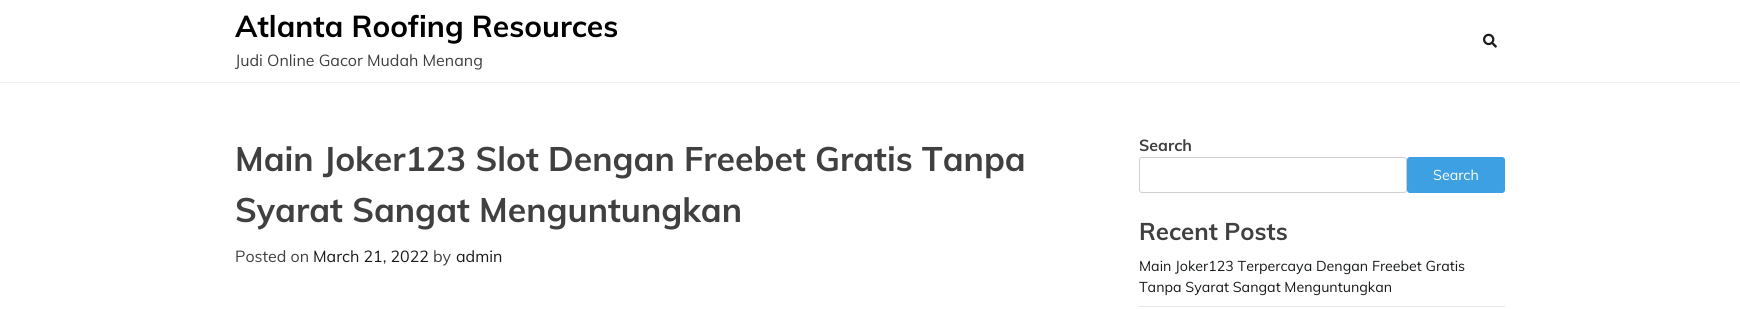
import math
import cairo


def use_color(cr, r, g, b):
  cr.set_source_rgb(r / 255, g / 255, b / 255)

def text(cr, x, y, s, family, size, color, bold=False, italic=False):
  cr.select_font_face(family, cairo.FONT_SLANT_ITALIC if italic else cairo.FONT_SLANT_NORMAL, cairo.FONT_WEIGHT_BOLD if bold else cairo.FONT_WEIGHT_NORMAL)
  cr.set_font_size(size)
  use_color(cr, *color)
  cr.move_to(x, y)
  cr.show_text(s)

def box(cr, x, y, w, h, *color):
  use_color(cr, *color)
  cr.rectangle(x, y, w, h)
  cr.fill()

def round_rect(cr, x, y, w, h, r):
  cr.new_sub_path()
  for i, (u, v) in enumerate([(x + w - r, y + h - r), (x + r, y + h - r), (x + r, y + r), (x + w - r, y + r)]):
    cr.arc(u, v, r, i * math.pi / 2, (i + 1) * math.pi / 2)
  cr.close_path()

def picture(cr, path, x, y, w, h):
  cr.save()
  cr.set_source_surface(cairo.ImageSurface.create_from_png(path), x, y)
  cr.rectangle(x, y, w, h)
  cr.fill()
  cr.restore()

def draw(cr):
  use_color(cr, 255, 255, 255)
  cr.paint()
  box(cr, 0, 82, 1740, 1, 241, 241, 241)
  picture(cr, "img_01.png", 1483, 33, 14, 15)
  round_rect(cr, 1139.5, 157.5, 267, 35, 2.5)
  use_color(cr, 211, 206, 210)
  cr.set_line_width(1)
  cr.stroke()
  use_color(cr, 61, 160, 226)
  round_rect(cr, 1407.5, 157.5, 97, 35, 2.5)
  cr.fill_preserve()
  cr.stroke()
  box(cr, 1139, 306, 366, 1, 230, 230, 230)
  text(cr, 235, 37, "Atlanta Roofing Resources", "Muli", 30, (0, 0, 0), bold=True)
  text(cr, 235, 66, "Judi Online Gacor Mudah Menang", "Muli", 16, (64, 64, 64))
  text(cr, 235, 171, "Main Joker123 Slot Dengan Freebet Gratis Tanpa", "Muli", 33.75, (64, 64, 64), bold=True)
  text(cr, 235, 222, "Syarat Sangat Menguntungkan", "Muli", 33.75, (64, 64, 64), bold=True)
  text(cr, 235, 262, "Posted on", "Muli", 16, (64, 64, 64))
  text(cr, 313, 262, "March 21, 2022", "Muli", 16, (25, 27, 29))
  text(cr, 433, 262, "by", "Muli", 16, (64, 64, 64))
  text(cr, 456, 262, "admin", "Muli", 16, (25, 27, 29))
  text(cr, 1139, 151, "Search", "Muli", 16, (64, 64, 64), bold=True)
  text(cr, 1433, 180, "Search", "Muli", 14.25, (255, 255, 255))
  text(cr, 1139, 240, "Recent Posts", "Muli", 24, (64, 64, 64), bold=True)
  text(cr, 1139, 271, "Main Joker123 Terpercaya Dengan Freebet Gratis", "Muli", 14.25, (25, 27, 29))
  text(cr, 1139, 292, "Tanpa Syarat Sangat Menguntungkan", "Muli", 14.25, (25, 27, 29))


surface = cairo.ImageSurface(cairo.FORMAT_RGB24, 1740, 309)
cr = cairo.Context(surface)
options = cairo.FontOptions()
options.set_hint_metrics(cairo.HINT_METRICS_OFF)
options.set_hint_style(cairo.HINT_STYLE_NONE)
cr.set_font_options(options)
cr.set_miter_limit(4)
draw(cr)
surface.write_to_png("out.png")
